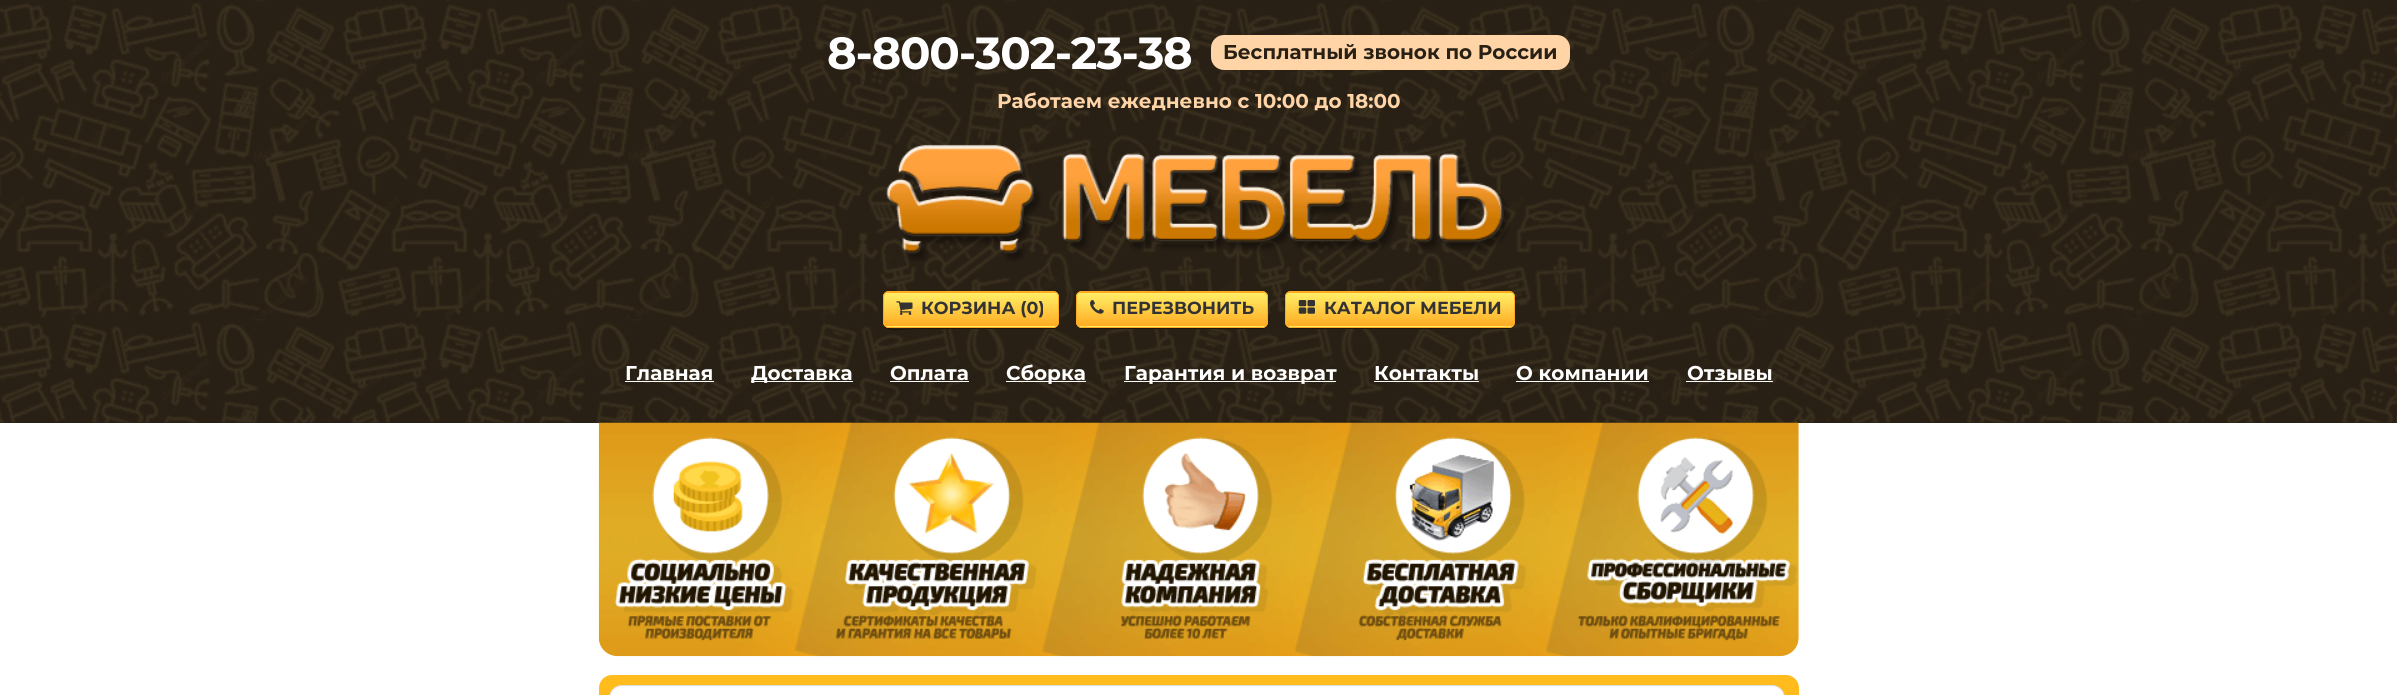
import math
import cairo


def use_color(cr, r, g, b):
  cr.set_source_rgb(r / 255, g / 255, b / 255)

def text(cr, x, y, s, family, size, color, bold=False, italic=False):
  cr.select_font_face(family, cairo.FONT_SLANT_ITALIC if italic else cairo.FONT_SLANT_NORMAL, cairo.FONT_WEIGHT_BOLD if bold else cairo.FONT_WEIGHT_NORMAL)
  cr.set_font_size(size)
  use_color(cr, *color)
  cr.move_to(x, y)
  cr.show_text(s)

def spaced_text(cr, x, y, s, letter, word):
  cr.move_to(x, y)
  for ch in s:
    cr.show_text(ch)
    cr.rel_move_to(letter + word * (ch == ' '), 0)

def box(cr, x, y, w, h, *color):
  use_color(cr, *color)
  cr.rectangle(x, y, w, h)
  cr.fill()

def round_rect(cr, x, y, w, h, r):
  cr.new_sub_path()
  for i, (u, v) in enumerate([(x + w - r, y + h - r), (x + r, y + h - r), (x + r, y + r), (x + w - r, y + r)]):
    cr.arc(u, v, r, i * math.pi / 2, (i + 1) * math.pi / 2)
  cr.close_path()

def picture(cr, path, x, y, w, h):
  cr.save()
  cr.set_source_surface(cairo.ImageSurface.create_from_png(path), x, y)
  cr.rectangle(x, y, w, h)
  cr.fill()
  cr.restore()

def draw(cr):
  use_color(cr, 255, 255, 255)
  cr.paint()
  box(cr, 0, 422, 2397, 1, 41, 32, 21)
  picture(cr, "img_01.png", 0, 0, 2397, 423)
  use_color(cr, 255, 213, 168)
  round_rect(cr, 1211, 35, 359, 35, 13)
  cr.fill()
  picture(cr, "img_02.png", 886, 144, 625, 117)
  use_color(cr, 29, 20, 8)
  cr.new_path()
  cr.move_to(883, 324)
  cr.curve_to(884, 334, 907, 329, 916, 329)
  cr.line_to(1053, 329)
  cr.curve_to(1060, 329, 1059, 320, 1059, 315)
  cr.line_to(1059, 297)
  cr.line_to(1059, 317)
  cr.curve_to(1059, 322, 1058, 327, 1052, 328)
  cr.line_to(916, 328)
  cr.curve_to(913, 328, 887, 332, 883, 324)
  cr.close_path()
  cr.fill()
  cr.save()
  round_rect(cr, 883, 291, 176, 37, 6)
  cr.clip()
  gradient = cairo.LinearGradient(971, 259, 971, 293)
  gradient.add_color_stop_rgba(0.05, 1, 0.925, 0.392, 1)
  gradient.add_color_stop_rgba(1, 1, 0.671, 0.137, 1)
  cr.set_source(gradient)
  cr.rectangle(883, 291, 176, 2)
  cr.fill()
  gradient = cairo.LinearGradient(971, 293, 971, 326)
  gradient.add_color_stop_rgba(0.05, 1, 0.925, 0.392, 1)
  gradient.add_color_stop_rgba(1, 1, 0.671, 0.137, 1)
  cr.set_source(gradient)
  cr.rectangle(883, 293, 176, 33)
  cr.fill()
  gradient = cairo.LinearGradient(971, 326, 971, 360)
  gradient.add_color_stop_rgba(0.05, 1, 0.925, 0.392, 1)
  gradient.add_color_stop_rgba(1, 1, 0.671, 0.137, 1)
  cr.set_source(gradient)
  cr.rectangle(883, 326, 176, 2)
  cr.fill()
  cr.restore()
  round_rect(cr, 883.5, 291.5, 175, 36, 5.5)
  use_color(cr, 255, 170, 34)
  cr.set_line_width(1)
  cr.stroke()
  picture(cr, "img_03.png", 896, 301, 17, 14)
  use_color(cr, 29, 20, 8)
  cr.new_path()
  cr.move_to(1076, 297)
  cr.line_to(1076, 323)
  cr.curve_to(1076, 326, 1079, 329, 1082, 329)
  cr.line_to(1262, 329)
  cr.curve_to(1265, 329, 1268, 326, 1268, 323)
  cr.line_to(1268, 299)
  cr.line_to(1267, 296)
  cr.line_to(1268, 313)
  cr.curve_to(1268, 318, 1269, 327, 1261, 328)
  cr.line_to(1082, 328)
  cr.curve_to(1075, 327, 1076, 318, 1076, 313)
  cr.close_path()
  cr.fill()
  cr.save()
  round_rect(cr, 1076, 291, 192, 37, 6)
  cr.clip()
  gradient = cairo.LinearGradient(1172, 259, 1172, 293)
  gradient.add_color_stop_rgba(0.05, 1, 0.925, 0.392, 1)
  gradient.add_color_stop_rgba(1, 1, 0.671, 0.137, 1)
  cr.set_source(gradient)
  cr.rectangle(1076, 291, 192, 2)
  cr.fill()
  gradient = cairo.LinearGradient(1172, 293, 1172, 326)
  gradient.add_color_stop_rgba(0.05, 1, 0.925, 0.392, 1)
  gradient.add_color_stop_rgba(1, 1, 0.671, 0.137, 1)
  cr.set_source(gradient)
  cr.rectangle(1076, 293, 192, 33)
  cr.fill()
  gradient = cairo.LinearGradient(1172, 326, 1172, 360)
  gradient.add_color_stop_rgba(0.05, 1, 0.925, 0.392, 1)
  gradient.add_color_stop_rgba(1, 1, 0.671, 0.137, 1)
  cr.set_source(gradient)
  cr.rectangle(1076, 326, 192, 2)
  cr.fill()
  cr.restore()
  round_rect(cr, 1076.5, 291.5, 191, 36, 5.5)
  use_color(cr, 255, 170, 34)
  cr.stroke()
  picture(cr, "img_04.png", 1090, 300, 14, 14)
  use_color(cr, 29, 20, 8)
  cr.new_path()
  cr.move_to(1285, 321)
  cr.line_to(1285, 323)
  cr.curve_to(1285, 326, 1288, 329, 1291, 329)
  cr.line_to(1509, 329)
  cr.curve_to(1512, 329, 1515, 326, 1515, 323)
  cr.line_to(1515, 321)
  cr.curve_to(1515, 325, 1512, 328, 1509, 328)
  cr.line_to(1291, 328)
  cr.curve_to(1288, 328, 1285, 325, 1285, 321)
  cr.close_path()
  cr.fill()
  cr.save()
  round_rect(cr, 1285, 291, 230, 37, 6)
  cr.clip()
  gradient = cairo.LinearGradient(1400, 259, 1400, 293)
  gradient.add_color_stop_rgba(0.05, 1, 0.925, 0.392, 1)
  gradient.add_color_stop_rgba(1, 1, 0.671, 0.137, 1)
  cr.set_source(gradient)
  cr.rectangle(1285, 291, 230, 2)
  cr.fill()
  gradient = cairo.LinearGradient(1400, 293, 1400, 326)
  gradient.add_color_stop_rgba(0.05, 1, 0.925, 0.392, 1)
  gradient.add_color_stop_rgba(1, 1, 0.671, 0.137, 1)
  cr.set_source(gradient)
  cr.rectangle(1285, 293, 230, 33)
  cr.fill()
  gradient = cairo.LinearGradient(1400, 326, 1400, 360)
  gradient.add_color_stop_rgba(0.05, 1, 0.925, 0.392, 1)
  gradient.add_color_stop_rgba(1, 1, 0.671, 0.137, 1)
  cr.set_source(gradient)
  cr.rectangle(1285, 326, 230, 2)
  cr.fill()
  cr.restore()
  round_rect(cr, 1285.5, 291.5, 229, 36, 5.5)
  use_color(cr, 255, 170, 34)
  cr.stroke()
  picture(cr, "img_05.png", 1298, 300, 17, 14)
  box(cr, 625, 381, 89, 1, 255, 255, 255)
  box(cr, 751, 381, 102, 1, 255, 255, 255)
  box(cr, 890, 381, 79, 1, 255, 255, 255)
  box(cr, 1006, 381, 80, 1, 255, 255, 255)
  box(cr, 1124, 381, 212, 1, 255, 255, 255)
  box(cr, 1374, 381, 105, 1, 255, 255, 255)
  box(cr, 1516, 381, 133, 1, 255, 255, 255)
  box(cr, 1686, 381, 87, 1, 255, 255, 255)
  picture(cr, "img_06.png", 598, 422, 1201, 235)
  use_color(cr, 255, 188, 28)
  round_rect(cr, 599, 675, 1200, 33, 13)
  cr.fill()
  use_color(cr, 255, 255, 255)
  round_rect(cr, 609.5, 685.5, 1175, 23, 12.5)
  cr.fill_preserve()
  use_color(cr, 221, 221, 221)
  cr.stroke()
  cr.select_font_face("Montserrat", cairo.FONT_SLANT_NORMAL, cairo.FONT_WEIGHT_BOLD)
  cr.set_font_size(45)
  use_color(cr, 255, 255, 255)
  spaced_text(cr, 827, 69, "8-800-302-23-38", -1.25, 0)
  text(cr, 1223, 59, "Бесплатный звонок по России", "Montserrat", 20, (41, 32, 21), bold=True)
  text(cr, 997, 108, "Работаем ежедневно с 10:00 до 18:00", "Montserrat", 20, (255, 213, 168), bold=True)
  text(cr, 921, 314, "КОРЗИНА (0)", "Montserrat", 17.5, (51, 51, 51), bold=True)
  text(cr, 1112, 314, "ПЕРЕЗВОНИТЬ", "Montserrat", 17.5, (51, 51, 51), bold=True)
  text(cr, 1324, 314, "КАТАЛОГ МЕБЕЛИ", "Montserrat", 17.5, (51, 51, 51), bold=True)
  text(cr, 625, 380, "Главная", "Montserrat", 20, (255, 255, 255), bold=True)
  text(cr, 751, 380, "Доставка", "Montserrat", 20, (255, 255, 255), bold=True)
  text(cr, 890, 380, "Оплата", "Montserrat", 20, (255, 255, 255), bold=True)
  text(cr, 1006, 380, "Сборка", "Montserrat", 20, (255, 255, 255), bold=True)
  text(cr, 1124, 380, "Гарантия и возврат", "Montserrat", 20, (255, 255, 255), bold=True)
  text(cr, 1374, 380, "Контакты", "Montserrat", 20, (255, 255, 255), bold=True)
  text(cr, 1516, 380, "О компании", "Montserrat", 20, (255, 255, 255), bold=True)
  text(cr, 1687, 380, "Отзывы", "Montserrat", 20, (255, 255, 255), bold=True)


surface = cairo.ImageSurface(cairo.FORMAT_RGB24, 2397, 695)
cr = cairo.Context(surface)
options = cairo.FontOptions()
options.set_hint_metrics(cairo.HINT_METRICS_OFF)
options.set_hint_style(cairo.HINT_STYLE_NONE)
cr.set_font_options(options)
cr.set_miter_limit(4)
draw(cr)
surface.write_to_png("out.png")
